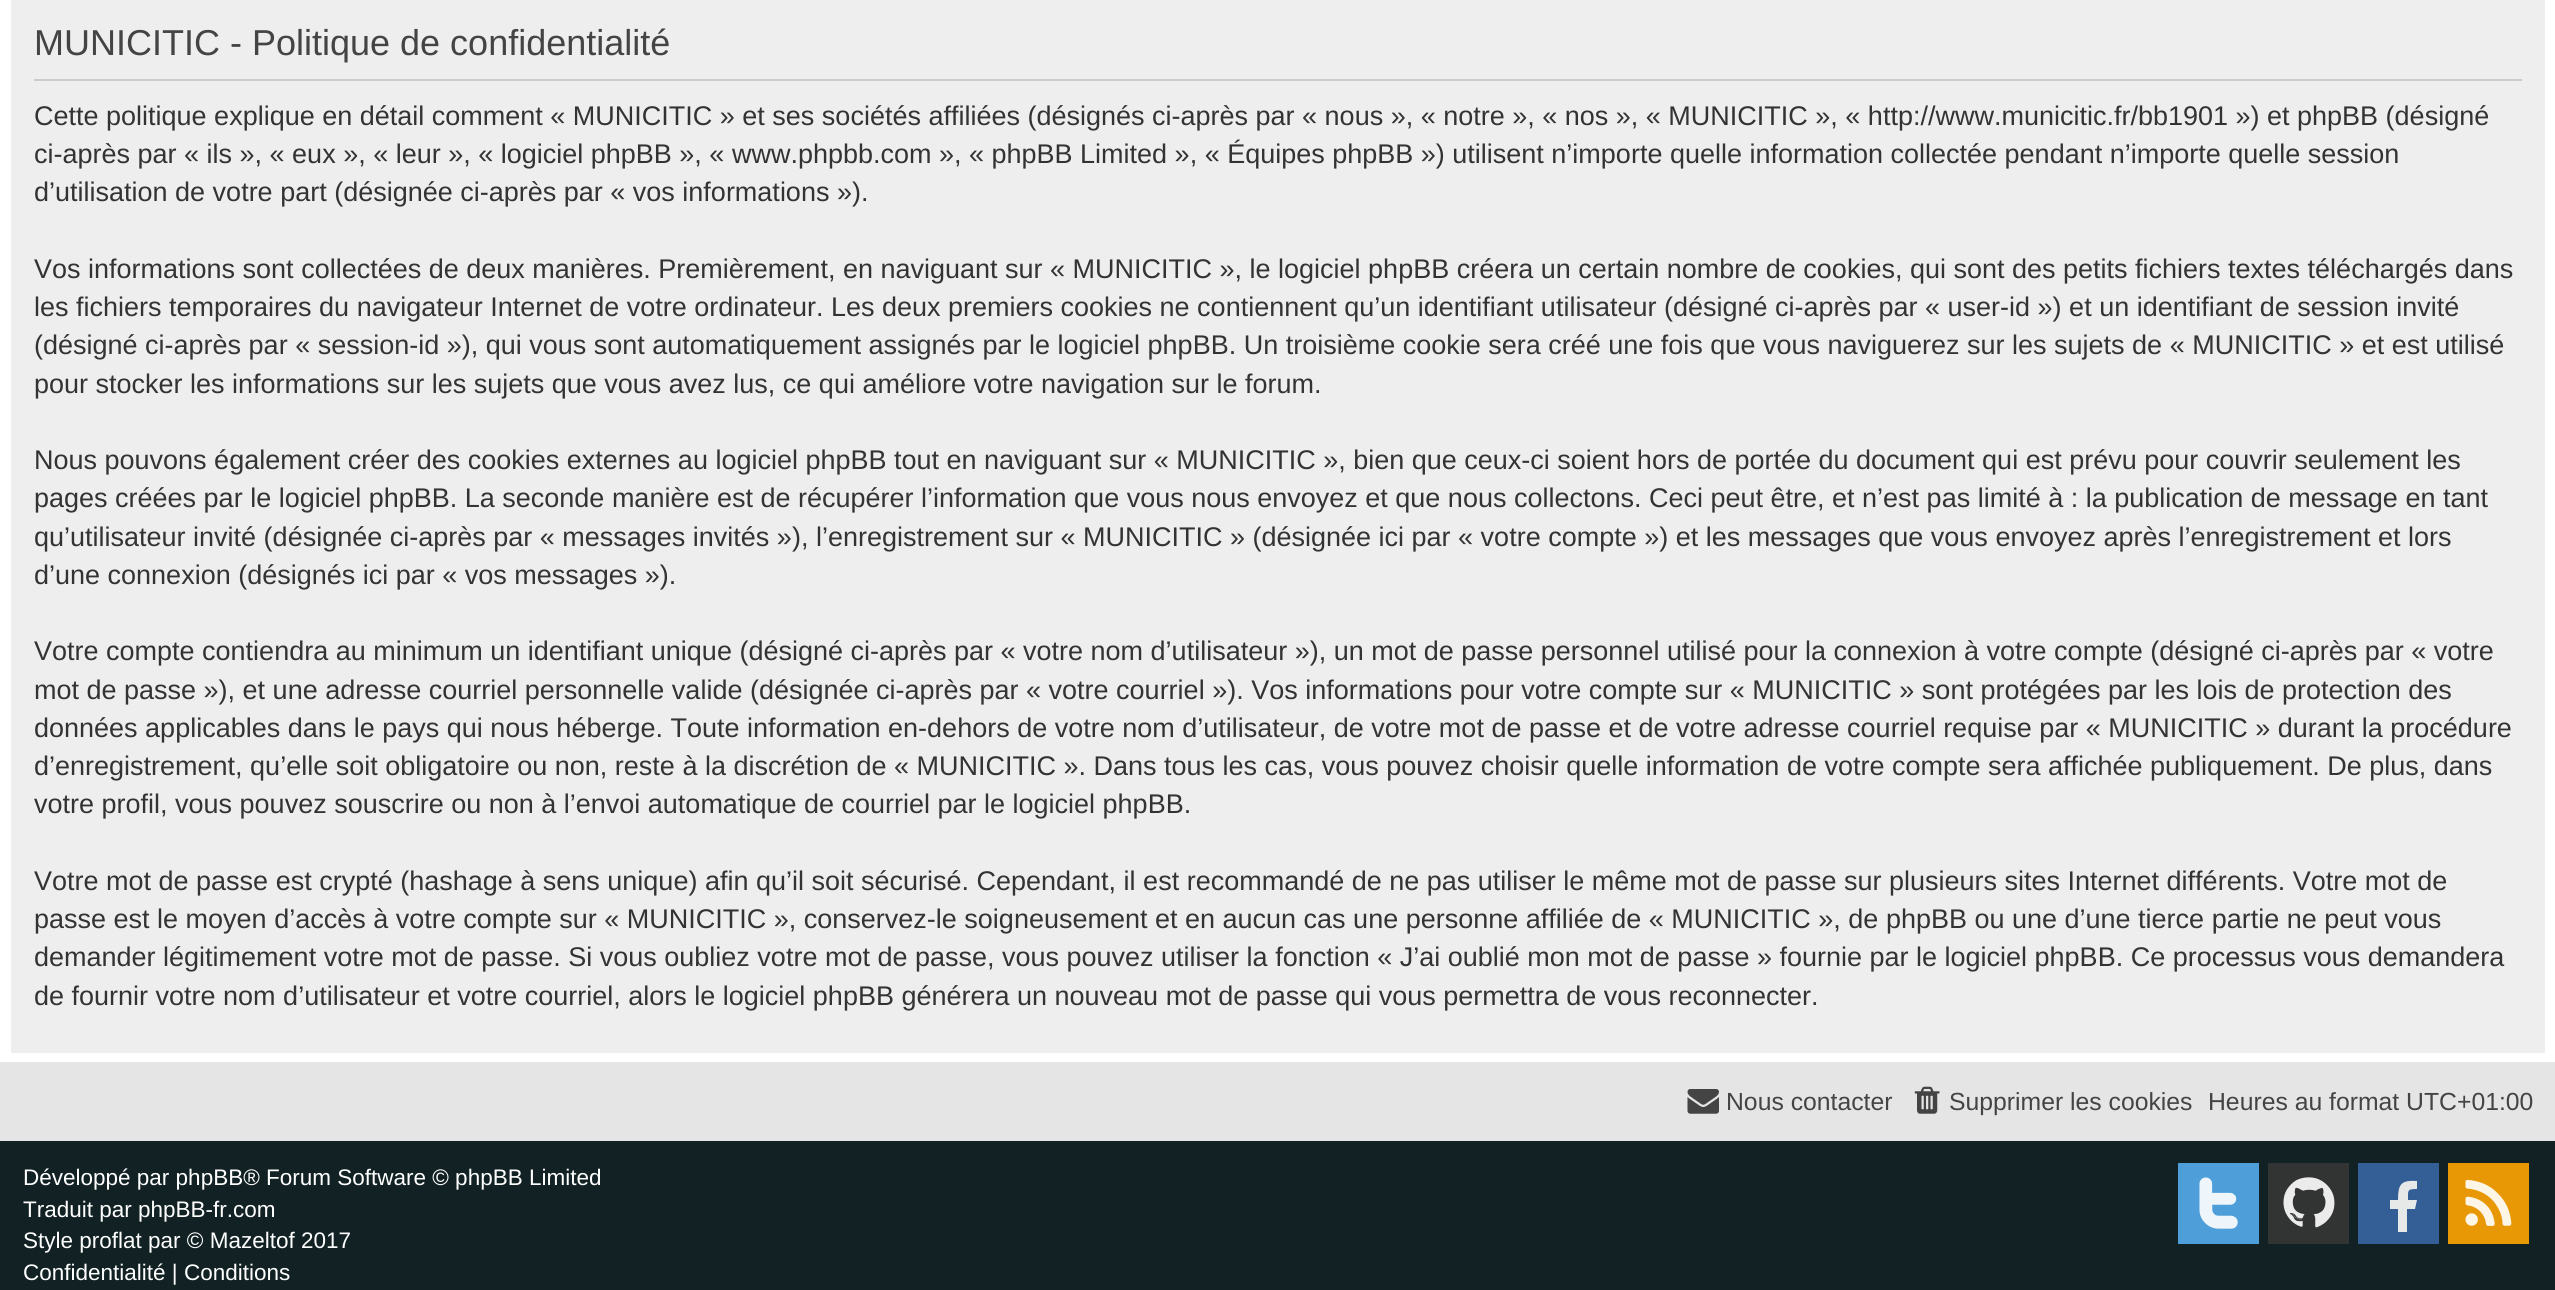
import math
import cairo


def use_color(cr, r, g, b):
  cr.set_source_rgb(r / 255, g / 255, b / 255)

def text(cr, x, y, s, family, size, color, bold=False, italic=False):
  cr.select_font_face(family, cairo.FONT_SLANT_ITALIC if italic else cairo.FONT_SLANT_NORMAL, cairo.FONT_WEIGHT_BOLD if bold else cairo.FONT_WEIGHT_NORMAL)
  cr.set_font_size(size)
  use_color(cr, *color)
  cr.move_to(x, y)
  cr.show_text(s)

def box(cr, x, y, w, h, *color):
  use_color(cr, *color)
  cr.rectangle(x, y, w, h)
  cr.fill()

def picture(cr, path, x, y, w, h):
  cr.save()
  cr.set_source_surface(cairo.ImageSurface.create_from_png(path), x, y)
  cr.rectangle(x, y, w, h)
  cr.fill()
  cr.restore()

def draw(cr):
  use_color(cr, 255, 255, 255)
  cr.paint()
  box(cr, 11, 0, 2534, 1053, 238, 238, 238)
  box(cr, 34, 79, 2488, 2, 204, 204, 204)
  box(cr, 0, 1062, 2555, 79, 229, 229, 229)
  picture(cr, "img_01.png", 1687, 1089, 32, 25)
  picture(cr, "img_02.png", 1914, 1086, 26, 28)
  box(cr, 0, 1141, 2555, 149, 18, 34, 36)
  box(cr, 2178, 1163, 81, 81, 78, 158, 218)
  picture(cr, "img_03.png", 2199, 1177, 39, 52)
  box(cr, 2268, 1163, 81, 81, 50, 51, 51)
  picture(cr, "img_04.png", 2283, 1177, 52, 51)
  box(cr, 2358, 1163, 81, 81, 51, 94, 150)
  use_color(cr, 231, 233, 233)
  cr.new_path()
  cr.move_to(2417, 1181)
  cr.line_to(2417, 1189)
  cr.curve_to(2407, 1189, 2408, 1190, 2408, 1200)
  cr.line_to(2417, 1200)
  cr.line_to(2415, 1209)
  cr.line_to(2407, 1209)
  cr.line_to(2407, 1232)
  cr.line_to(2398, 1232)
  cr.line_to(2398, 1209)
  cr.line_to(2390, 1209)
  cr.line_to(2390, 1200)
  cr.line_to(2398, 1200)
  cr.curve_to(2398, 1184, 2401, 1180, 2417, 1181)
  cr.close_path()
  cr.fill()
  box(cr, 2448, 1163, 81, 81, 231, 152, 4)
  picture(cr, "img_05.png", 2465, 1179, 47, 47)
  text(cr, 34, 55, "MUNICITIC - Politique de confidentialité", "Liberation Sans", 36, (68, 68, 68))
  text(cr, 34, 125, "Cette politique explique en détail comment « MUNICITIC » et ses sociétés affiliées (désignés ci-après par « nous », « notre », « nos », « MUNICITIC », « http://www.municitic.fr/bb1901 ») et phpBB (désigné", "Liberation Sans", 27, (51, 51, 51))
  text(cr, 34, 163, "ci-après par « ils », « eux », « leur », « logiciel phpBB », « www.phpbb.com », « phpBB Limited », « Équipes phpBB ») utilisent n’importe quelle information collectée pendant n’importe quelle session", "Liberation Sans", 27, (51, 51, 51))
  text(cr, 34, 201, "d’utilisation de votre part (désignée ci-après par « vos informations »).", "Liberation Sans", 27, (51, 51, 51))
  text(cr, 34, 278, "Vos informations sont collectées de deux manières. Premièrement, en naviguant sur « MUNICITIC », le logiciel phpBB créera un certain nombre de cookies, qui sont des petits fichiers textes téléchargés dans", "Liberation Sans", 27, (51, 51, 51))
  text(cr, 34, 316, "les fichiers temporaires du navigateur Internet de votre ordinateur. Les deux premiers cookies ne contiennent qu’un identifiant utilisateur (désigné ci-après par « user-id ») et un identifiant de session invité", "Liberation Sans", 27, (51, 51, 51))
  text(cr, 34, 354, "(désigné ci-après par « session-id »), qui vous sont automatiquement assignés par le logiciel phpBB. Un troisième cookie sera créé une fois que vous naviguerez sur les sujets de « MUNICITIC » et est utilisé", "Liberation Sans", 27, (51, 51, 51))
  text(cr, 34, 393, "pour stocker les informations sur les sujets que vous avez lus, ce qui améliore votre navigation sur le forum.", "Liberation Sans", 27, (51, 51, 51))
  text(cr, 34, 469, "Nous pouvons également créer des cookies externes au logiciel phpBB tout en naviguant sur « MUNICITIC », bien que ceux-ci soient hors de portée du document qui est prévu pour couvrir seulement les", "Liberation Sans", 27, (51, 51, 51))
  text(cr, 34, 507, "pages créées par le logiciel phpBB. La seconde manière est de récupérer l’information que vous nous envoyez et que nous collectons. Ceci peut être, et n’est pas limité à : la publication de message en tant", "Liberation Sans", 27, (51, 51, 51))
  text(cr, 34, 546, "qu’utilisateur invité (désignée ci-après par « messages invités »), l’enregistrement sur « MUNICITIC » (désignée ici par « votre compte ») et les messages que vous envoyez après l’enregistrement et lors", "Liberation Sans", 27, (51, 51, 51))
  text(cr, 34, 584, "d’une connexion (désignés ici par « vos messages »).", "Liberation Sans", 27, (51, 51, 51))
  text(cr, 34, 660, "Votre compte contiendra au minimum un identifiant unique (désigné ci-après par « votre nom d’utilisateur »), un mot de passe personnel utilisé pour la connexion à votre compte (désigné ci-après par « votre", "Liberation Sans", 27, (51, 51, 51))
  text(cr, 34, 699, "mot de passe »), et une adresse courriel personnelle valide (désignée ci-après par « votre courriel »). Vos informations pour votre compte sur « MUNICITIC » sont protégées par les lois de protection des", "Liberation Sans", 27, (51, 51, 51))
  text(cr, 34, 737, "données applicables dans le pays qui nous héberge. Toute information en-dehors de votre nom d’utilisateur, de votre mot de passe et de votre adresse courriel requise par « MUNICITIC » durant la procédure", "Liberation Sans", 27, (51, 51, 51))
  text(cr, 34, 775, "d’enregistrement, qu’elle soit obligatoire ou non, reste à la discrétion de « MUNICITIC ». Dans tous les cas, vous pouvez choisir quelle information de votre compte sera affichée publiquement. De plus, dans", "Liberation Sans", 27, (51, 51, 51))
  text(cr, 34, 813, "votre profil, vous pouvez souscrire ou non à l’envoi automatique de courriel par le logiciel phpBB.", "Liberation Sans", 27, (51, 51, 51))
  text(cr, 34, 890, "Votre mot de passe est crypté (hashage à sens unique) afin qu’il soit sécurisé. Cependant, il est recommandé de ne pas utiliser le même mot de passe sur plusieurs sites Internet différents. Votre mot de", "Liberation Sans", 27, (51, 51, 51))
  text(cr, 34, 928, "passe est le moyen d’accès à votre compte sur « MUNICITIC », conservez-le soigneusement et en aucun cas une personne affiliée de « MUNICITIC », de phpBB ou une d’une tierce partie ne peut vous", "Liberation Sans", 27, (51, 51, 51))
  text(cr, 34, 966, "demander légitimement votre mot de passe. Si vous oubliez votre mot de passe, vous pouvez utiliser la fonction « J’ai oublié mon mot de passe » fournie par le logiciel phpBB. Ce processus vous demandera", "Liberation Sans", 27, (51, 51, 51))
  text(cr, 34, 1005, "de fournir votre nom d’utilisateur et votre courriel, alors le logiciel phpBB générera un nouveau mot de passe qui vous permettra de vous reconnecter.", "Liberation Sans", 27, (51, 51, 51))
  text(cr, 1726, 1110, "Nous contacter", "Liberation Sans", 24.75, (68, 68, 68))
  text(cr, 1949, 1110, "Supprimer les cookies", "Liberation Sans", 24.75, (68, 68, 68))
  text(cr, 2208, 1110, "Heures au format UTC+01:00", "Liberation Sans", 24.75, (68, 68, 68))
  text(cr, 23, 1185, "Développé par phpBB® Forum Software © phpBB Limited", "Liberation Sans", 22.5, (255, 255, 255))
  text(cr, 23, 1217, "Traduit par phpBB-fr.com", "Liberation Sans", 22.5, (255, 255, 255))
  text(cr, 23, 1248, "Style proflat par © Mazeltof 2017", "Liberation Sans", 22.5, (255, 255, 255))
  text(cr, 23, 1280, "Confidentialité | Conditions", "Liberation Sans", 22.5, (255, 255, 255))


surface = cairo.ImageSurface(cairo.FORMAT_RGB24, 2555, 1290)
cr = cairo.Context(surface)
options = cairo.FontOptions()
options.set_hint_metrics(cairo.HINT_METRICS_OFF)
options.set_hint_style(cairo.HINT_STYLE_NONE)
cr.set_font_options(options)
cr.set_miter_limit(4)
draw(cr)
surface.write_to_png("out.png")
